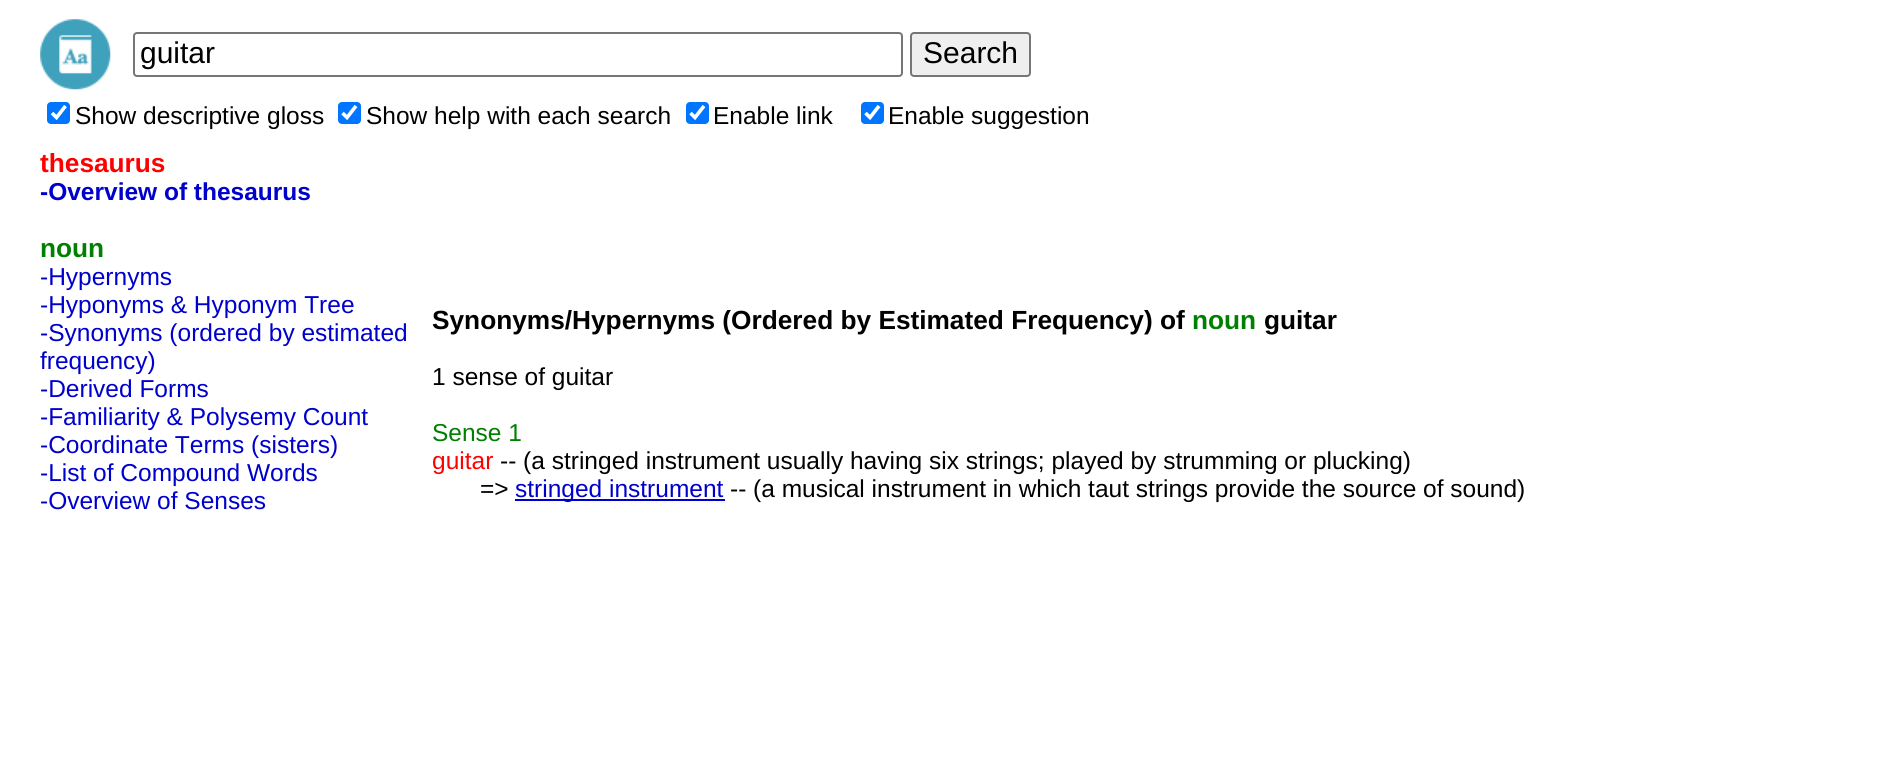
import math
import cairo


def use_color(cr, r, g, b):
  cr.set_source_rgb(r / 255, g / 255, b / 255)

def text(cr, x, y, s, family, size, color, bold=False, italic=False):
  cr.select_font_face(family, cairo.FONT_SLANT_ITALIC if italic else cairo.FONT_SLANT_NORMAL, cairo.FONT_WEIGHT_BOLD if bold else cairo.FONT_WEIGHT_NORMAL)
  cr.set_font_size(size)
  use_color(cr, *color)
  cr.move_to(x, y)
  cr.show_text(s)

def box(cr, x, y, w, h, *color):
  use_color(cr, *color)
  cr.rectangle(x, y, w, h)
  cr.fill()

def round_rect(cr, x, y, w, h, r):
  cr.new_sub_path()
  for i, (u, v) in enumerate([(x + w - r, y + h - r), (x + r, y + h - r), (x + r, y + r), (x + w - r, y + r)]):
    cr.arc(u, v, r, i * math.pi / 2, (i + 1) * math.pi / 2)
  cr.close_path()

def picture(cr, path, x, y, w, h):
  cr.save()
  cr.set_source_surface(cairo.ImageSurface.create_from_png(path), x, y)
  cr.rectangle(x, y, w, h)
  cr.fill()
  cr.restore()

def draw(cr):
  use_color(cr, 255, 255, 255)
  cr.paint()
  picture(cr, "img_01.png", 40, 19, 71, 71)
  round_rect(cr, 134, 33, 768, 43, 3)
  use_color(cr, 118, 118, 118)
  cr.stroke()
  use_color(cr, 239, 239, 239)
  round_rect(cr, 911, 33, 119, 43, 3)
  cr.fill_preserve()
  use_color(cr, 118, 118, 118)
  cr.stroke()
  use_color(cr, 0, 117, 255)
  round_rect(cr, 47, 102, 23, 22, 4)
  cr.fill()
  cr.new_path()
  cr.move_to(52, 113)
  cr.line_to(56.5, 117.5)
  cr.line_to(65.5, 106)
  use_color(cr, 255, 255, 255)
  cr.set_line_width(3.6)
  cr.stroke()
  use_color(cr, 0, 117, 255)
  round_rect(cr, 338, 102, 23, 22, 4)
  cr.fill()
  cr.new_path()
  cr.move_to(342.5, 113)
  cr.line_to(347, 117.5)
  cr.line_to(356, 106)
  use_color(cr, 255, 255, 255)
  cr.stroke()
  use_color(cr, 0, 117, 255)
  round_rect(cr, 686, 102, 23, 22, 4)
  cr.fill()
  cr.new_path()
  cr.move_to(690.5, 113)
  cr.line_to(695, 117.5)
  cr.line_to(704, 106)
  use_color(cr, 255, 255, 255)
  cr.stroke()
  use_color(cr, 0, 117, 255)
  round_rect(cr, 861, 102, 23, 22, 4)
  cr.fill()
  cr.new_path()
  cr.move_to(865.5, 113)
  cr.line_to(870, 117.5)
  cr.line_to(879, 106)
  use_color(cr, 255, 255, 255)
  cr.stroke()
  box(cr, 515, 499, 210, 2, 0, 0, 204)
  text(cr, 140, 63, "guitar", "Liberation Sans", 30, (0, 0, 0))
  text(cr, 923, 63, "Search", "Liberation Sans", 30, (0, 0, 0))
  text(cr, 75, 124, "Show descriptive gloss", "Liberation Sans", 24.5, (0, 0, 0))
  text(cr, 366, 124, "Show help with each search", "Liberation Sans", 24.5, (0, 0, 0))
  text(cr, 713, 124, "Enable link", "Liberation Sans", 24.5, (0, 0, 0))
  text(cr, 888, 124, "Enable suggestion", "Liberation Sans", 24.5, (0, 0, 0))
  text(cr, 40, 172, "thesaurus", "Liberation Sans", 26.25, (255, 0, 0), bold=True)
  text(cr, 40, 200, "-Overview of thesaurus", "Liberation Sans", 24.5, (0, 0, 204), bold=True)
  text(cr, 40, 257, "noun", "Liberation Sans", 26.25, (0, 128, 0), bold=True)
  text(cr, 40, 285, "-Hypernyms", "Liberation Sans", 24.5, (0, 0, 204))
  text(cr, 40, 313, "-Hyponyms & Hyponym Tree", "Liberation Sans", 24.5, (0, 0, 204))
  text(cr, 40, 341, "-Synonyms (ordered by estimated", "Liberation Sans", 24.5, (0, 0, 204))
  text(cr, 40, 369, "frequency)", "Liberation Sans", 24.5, (0, 0, 204))
  text(cr, 40, 397, "-Derived Forms", "Liberation Sans", 24.5, (0, 0, 204))
  text(cr, 40, 425, "-Familiarity & Polysemy Count", "Liberation Sans", 24.5, (0, 0, 204))
  text(cr, 40, 453, "-Coordinate Terms (sisters)", "Liberation Sans", 24.5, (0, 0, 204))
  text(cr, 40, 481, "-List of Compound Words", "Liberation Sans", 24.5, (0, 0, 204))
  text(cr, 40, 509, "-Overview of Senses", "Liberation Sans", 24.5, (0, 0, 204))
  text(cr, 432, 329, "Synonyms/Hypernyms (Ordered by Estimated Frequency) of", "Liberation Sans", 26.25, (0, 0, 0), bold=True)
  text(cr, 1192, 329, "noun", "Liberation Sans", 26.25, (0, 128, 0), bold=True)
  text(cr, 1264, 329, "guitar", "Liberation Sans", 26.25, (0, 0, 0), bold=True)
  text(cr, 432, 385, "1 sense of guitar", "Liberation Sans", 24.5, (0, 0, 0))
  text(cr, 432, 441, "Sense 1", "Liberation Sans", 24.5, (0, 128, 0))
  text(cr, 432, 469, "guitar", "Liberation Sans", 24.5, (255, 0, 0))
  text(cr, 500, 469, "-- (a stringed instrument usually having six strings; played by strumming or plucking)", "Liberation Sans", 24.5, (0, 0, 0))
  text(cr, 480, 497, "=>", "Liberation Sans", 24.5, (0, 0, 0))
  text(cr, 515, 497, "stringed instrument", "Liberation Sans", 24.5, (0, 0, 204))
  text(cr, 730, 497, "-- (a musical instrument in which taut strings provide the source of sound)", "Liberation Sans", 24.5, (0, 0, 0))


surface = cairo.ImageSurface(cairo.FORMAT_RGB24, 1877, 782)
cr = cairo.Context(surface)
options = cairo.FontOptions()
options.set_hint_metrics(cairo.HINT_METRICS_OFF)
options.set_hint_style(cairo.HINT_STYLE_NONE)
cr.set_font_options(options)
cr.set_miter_limit(4)
draw(cr)
surface.write_to_png("out.png")
